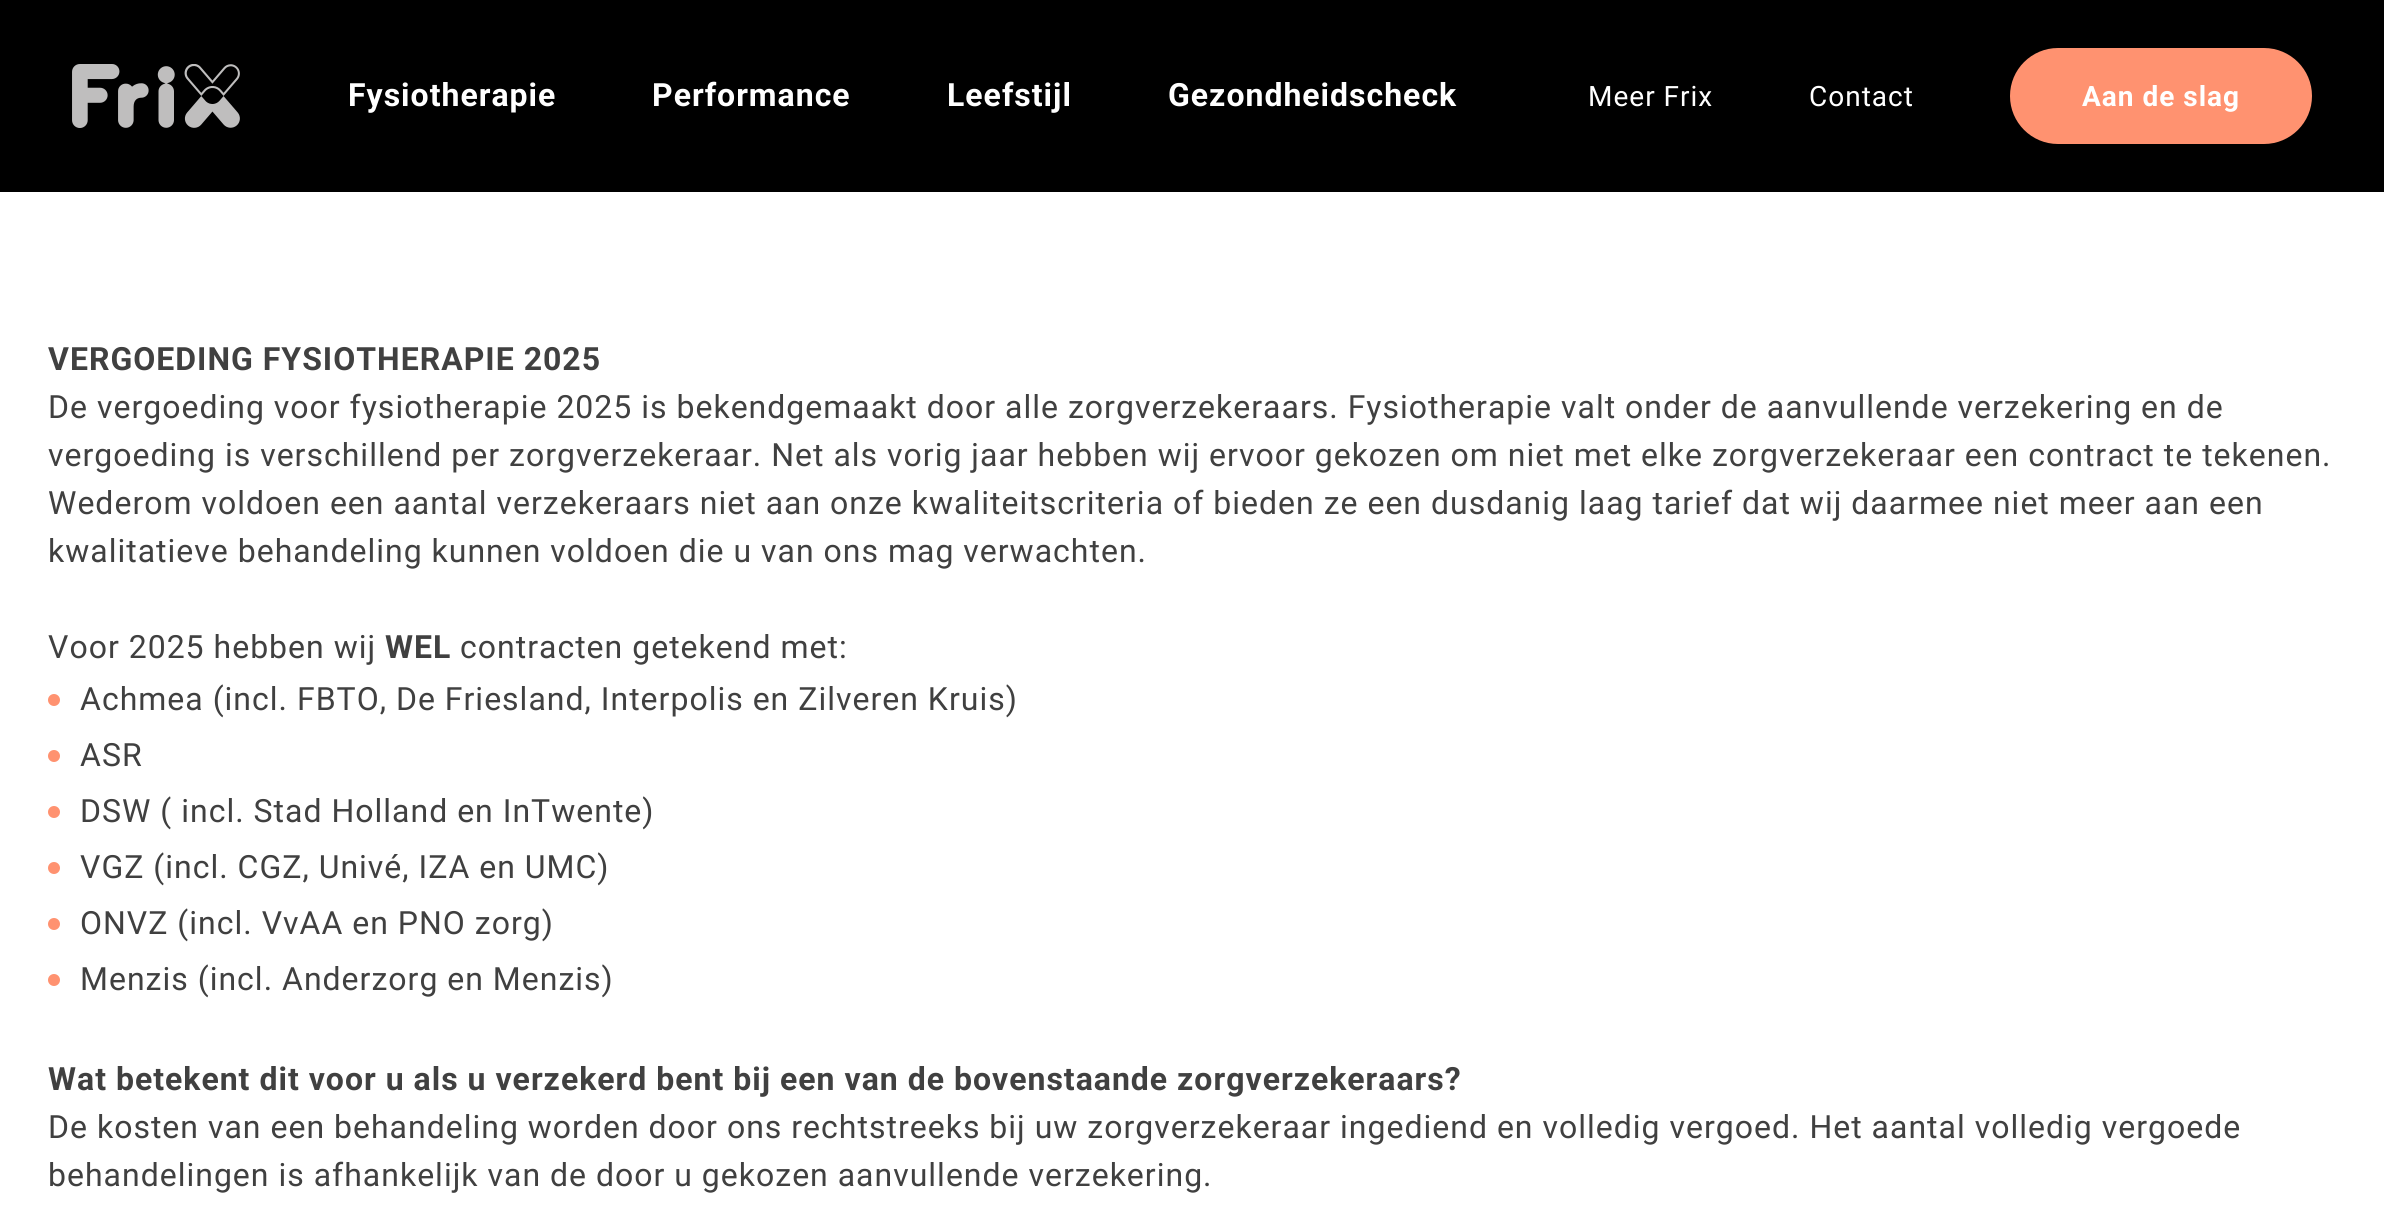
import math
import cairo


def use_color(cr, r, g, b):
  cr.set_source_rgb(r / 255, g / 255, b / 255)

def spaced_text(cr, x, y, s, letter, word):
  cr.move_to(x, y)
  for ch in s:
    cr.show_text(ch)
    cr.rel_move_to(letter + word * (ch == ' '), 0)

def box(cr, x, y, w, h, *color):
  use_color(cr, *color)
  cr.rectangle(x, y, w, h)
  cr.fill()

def round_rect(cr, x, y, w, h, r):
  cr.new_sub_path()
  for i, (u, v) in enumerate([(x + w - r, y + h - r), (x + r, y + h - r), (x + r, y + r), (x + w - r, y + r)]):
    cr.arc(u, v, r, i * math.pi / 2, (i + 1) * math.pi / 2)
  cr.close_path()

def picture(cr, path, x, y, w, h):
  cr.save()
  cr.set_source_surface(cairo.ImageSurface.create_from_png(path), x, y)
  cr.rectangle(x, y, w, h)
  cr.fill()
  cr.restore()

def draw(cr):
  use_color(cr, 0, 0, 0)
  cr.paint()
  picture(cr, "img_01.png", 72, 64, 168, 64)
  use_color(cr, 255, 146, 112)
  round_rect(cr, 2010, 48, 302, 96, 48)
  cr.fill()
  box(cr, 0, 192, 2384, 1019, 255, 255, 255)
  use_color(cr, 255, 146, 112)
  cr.arc(54, 700, 6, 0, 2 * math.pi)
  cr.fill()
  cr.arc(54, 756, 6, 0, 2 * math.pi)
  cr.fill()
  cr.arc(54, 812, 6, 0, 2 * math.pi)
  cr.fill()
  cr.arc(54, 868, 6, 0, 2 * math.pi)
  cr.fill()
  cr.arc(54, 924, 6, 0, 2 * math.pi)
  cr.fill()
  cr.arc(54, 980, 6, 0, 2 * math.pi)
  cr.fill()
  cr.select_font_face("Roboto", cairo.FONT_SLANT_NORMAL, cairo.FONT_WEIGHT_BOLD)
  cr.set_font_size(32)
  use_color(cr, 255, 255, 255)
  spaced_text(cr, 348, 106, "Fysiotherapie", 1, 0)
  spaced_text(cr, 652, 106, "Performance", 1, 0)
  spaced_text(cr, 947, 106, "Leefstijl", 1, 0)
  spaced_text(cr, 1168, 106, "Gezondheidscheck", 1, 0)
  cr.select_font_face("Roboto")
  cr.set_font_size(28)
  spaced_text(cr, 1588, 106, "Meer Frix", 1, 0)
  spaced_text(cr, 1809, 106, "Contact", 1, 0)
  cr.select_font_face("Roboto", cairo.FONT_SLANT_NORMAL, cairo.FONT_WEIGHT_BOLD)
  spaced_text(cr, 2082, 106, "Aan de slag", 1, 0)
  cr.set_font_size(32)
  use_color(cr, 64, 64, 64)
  spaced_text(cr, 48, 370, "VERGOEDING FYSIOTHERAPIE 2025", 1, 0)
  cr.select_font_face("Roboto")
  spaced_text(cr, 48, 418, "De vergoeding voor fysiotherapie 2025 is bekendgemaakt door alle zorgverzekeraars. Fysiotherapie valt onder de aanvullende verzekering en de", 1, 0)
  spaced_text(cr, 48, 466, "vergoeding is verschillend per zorgverzekeraar. Net als vorig jaar hebben wij ervoor gekozen om niet met elke zorgverzekeraar een contract te tekenen.", 1, 0)
  spaced_text(cr, 48, 514, "Wederom voldoen een aantal verzekeraars niet aan onze kwaliteitscriteria of bieden ze een dusdanig laag tarief dat wij daarmee niet meer aan een", 1, 0)
  spaced_text(cr, 48, 562, "kwalitatieve behandeling kunnen voldoen die u van ons mag verwachten.", 1, 0)
  spaced_text(cr, 48, 658, "Voor 2025 hebben wij", 1, 0)
  cr.select_font_face("Roboto", cairo.FONT_SLANT_NORMAL, cairo.FONT_WEIGHT_BOLD)
  spaced_text(cr, 385, 658, "WEL", 1, 0)
  cr.select_font_face("Roboto")
  spaced_text(cr, 460, 658, "contracten getekend met:", 1, 0)
  spaced_text(cr, 80, 710, "Achmea (incl. FBTO, De Friesland, Interpolis en Zilveren Kruis)", 1, 0)
  spaced_text(cr, 80, 766, "ASR", 1, 0)
  spaced_text(cr, 80, 822, "DSW ( incl. Stad Holland en InTwente)", 1, 0)
  spaced_text(cr, 80, 878, "VGZ (incl. CGZ, Univé, IZA en UMC)", 1, 0)
  spaced_text(cr, 80, 934, "ONVZ (incl. VvAA en PNO zorg)", 1, 0)
  spaced_text(cr, 80, 990, "Menzis (incl. Anderzorg en Menzis)", 1, 0)
  cr.select_font_face("Roboto", cairo.FONT_SLANT_NORMAL, cairo.FONT_WEIGHT_BOLD)
  spaced_text(cr, 48, 1090, "Wat betekent dit voor u als u verzekerd bent bij een van de bovenstaande zorgverzekeraars?", 1, 0)
  cr.select_font_face("Roboto")
  spaced_text(cr, 48, 1138, "De kosten van een behandeling worden door ons rechtstreeks bij uw zorgverzekeraar ingediend en volledig vergoed. Het aantal volledig vergoede", 1, 0)
  spaced_text(cr, 48, 1186, "behandelingen is afhankelijk van de door u gekozen aanvullende verzekering.", 1, 0)


surface = cairo.ImageSurface(cairo.FORMAT_RGB24, 2384, 1211)
cr = cairo.Context(surface)
options = cairo.FontOptions()
options.set_hint_metrics(cairo.HINT_METRICS_OFF)
options.set_hint_style(cairo.HINT_STYLE_NONE)
cr.set_font_options(options)
cr.set_miter_limit(4)
draw(cr)
surface.write_to_png("out.png")
